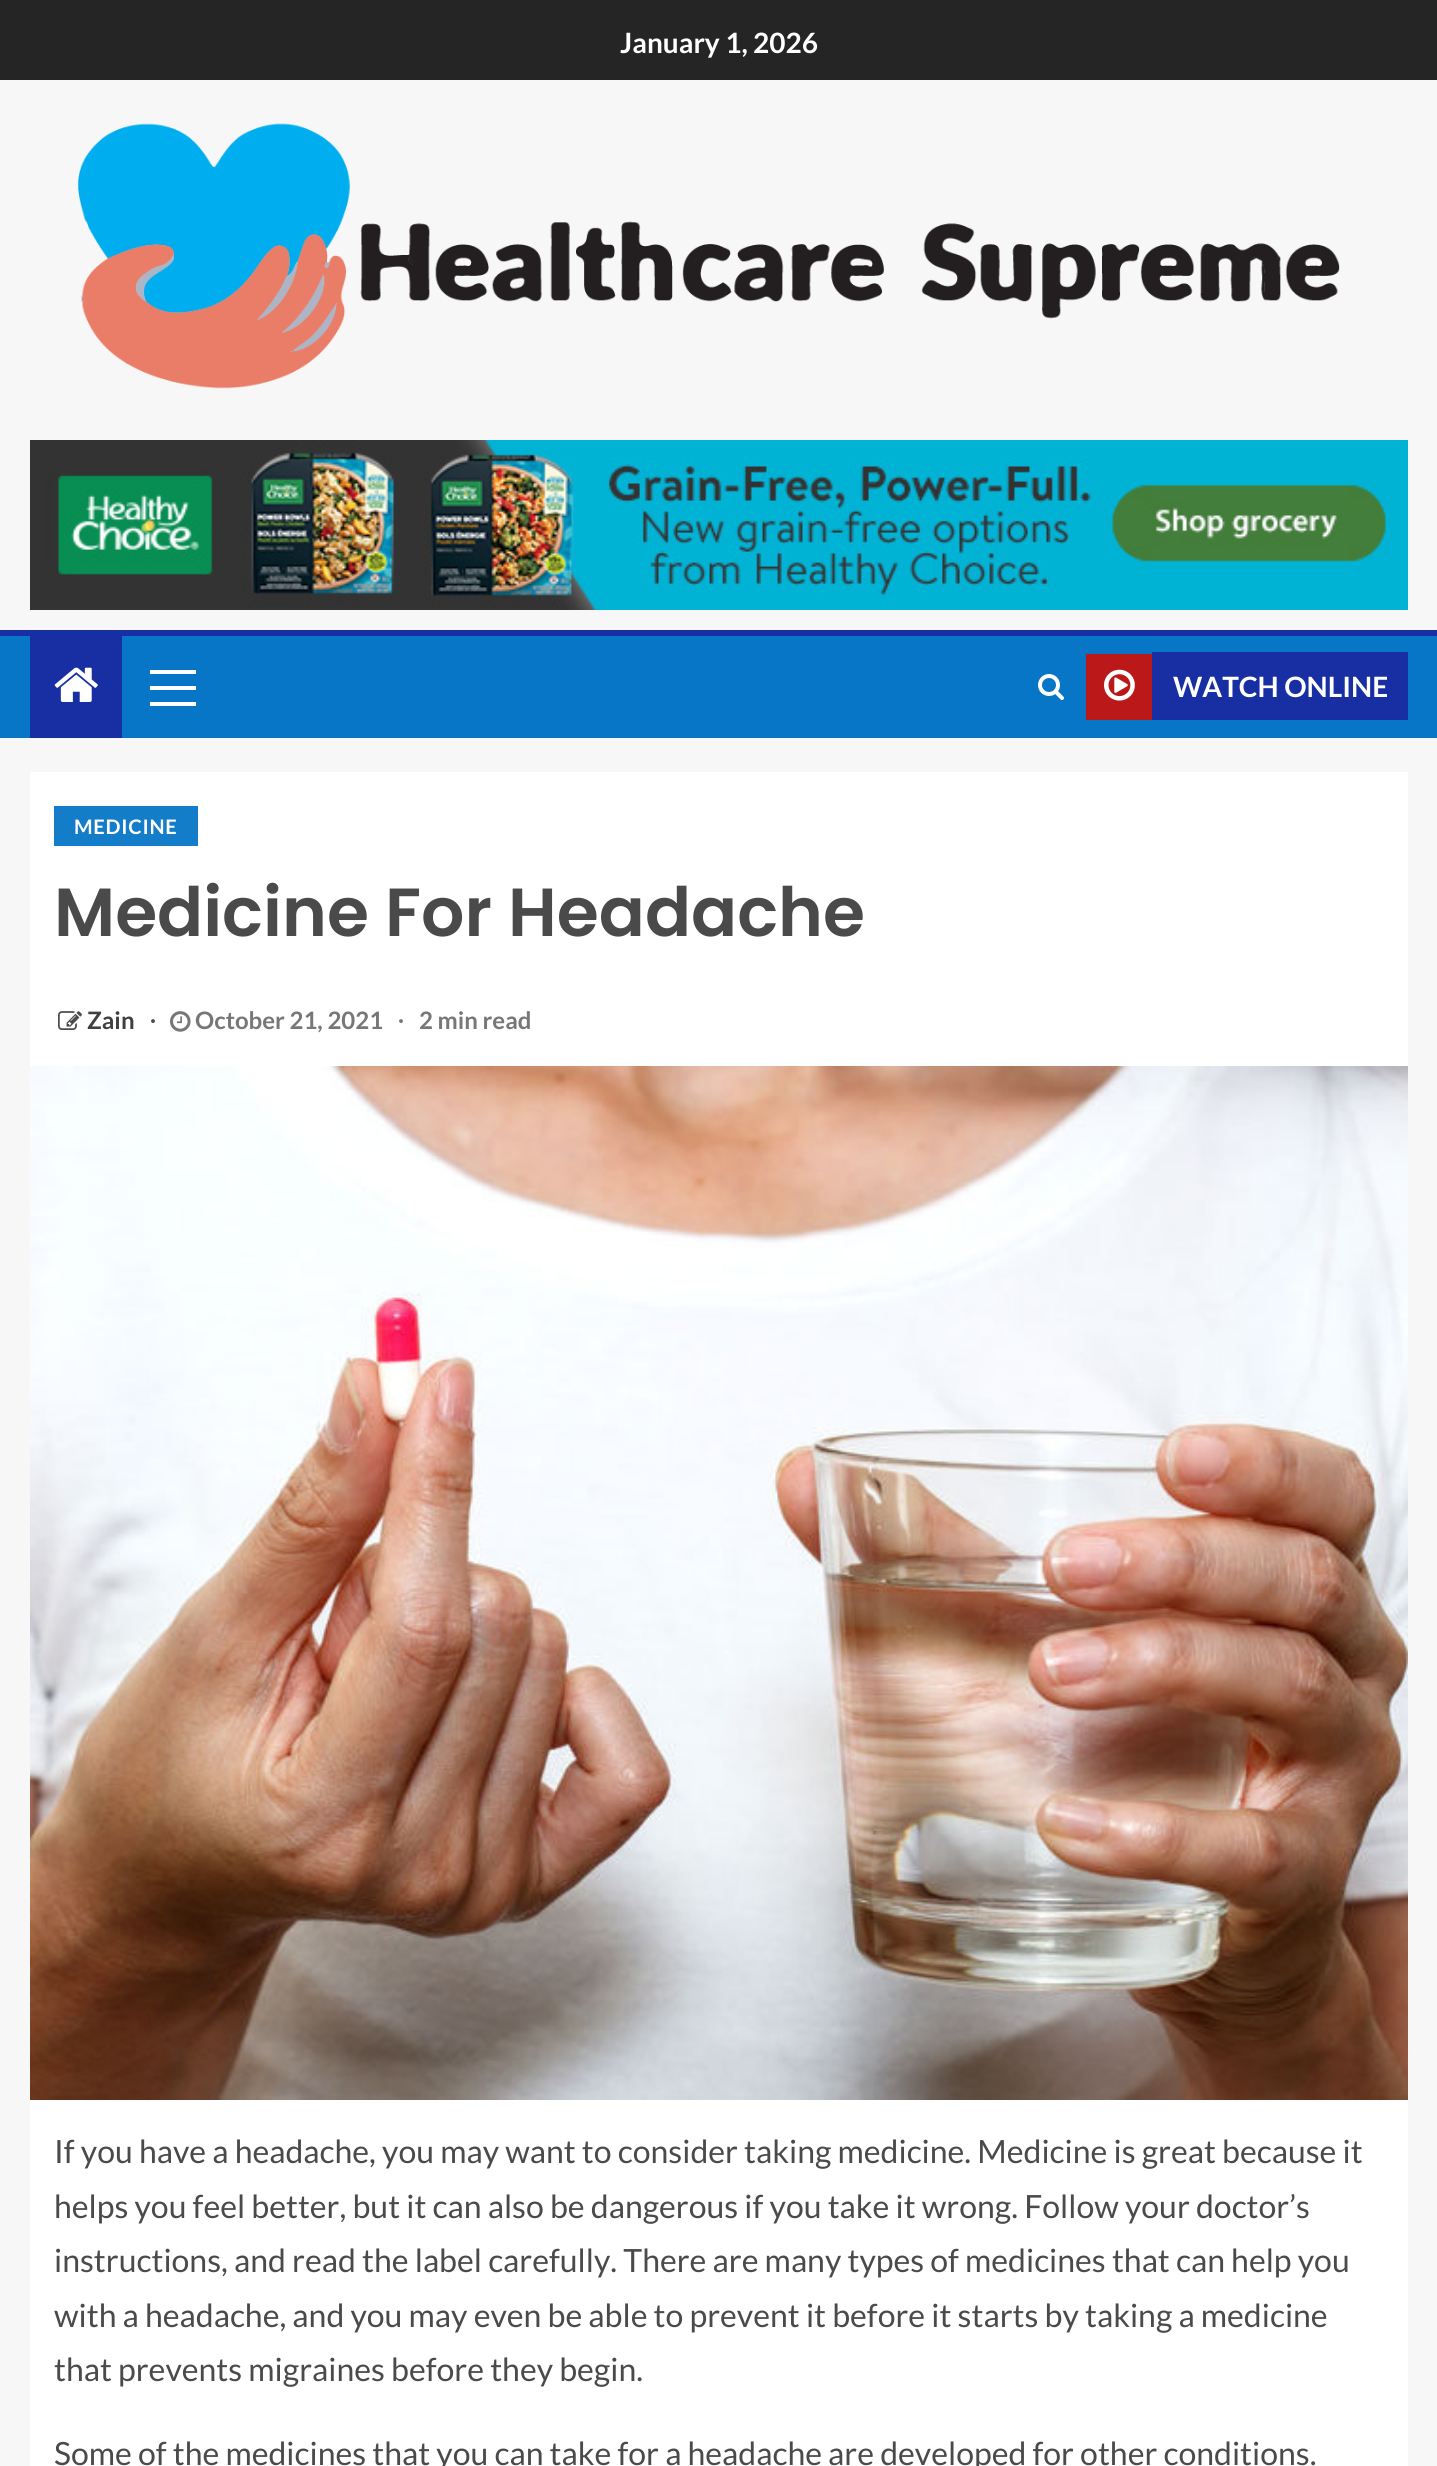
import math
import cairo


def use_color(cr, r, g, b):
  cr.set_source_rgb(r / 255, g / 255, b / 255)

def text(cr, x, y, s, family, size, color, bold=False, italic=False):
  cr.select_font_face(family, cairo.FONT_SLANT_ITALIC if italic else cairo.FONT_SLANT_NORMAL, cairo.FONT_WEIGHT_BOLD if bold else cairo.FONT_WEIGHT_NORMAL)
  cr.set_font_size(size)
  use_color(cr, *color)
  cr.move_to(x, y)
  cr.show_text(s)

def spaced_text(cr, x, y, s, letter, word):
  cr.move_to(x, y)
  for ch in s:
    cr.show_text(ch)
    cr.rel_move_to(letter + word * (ch == ' '), 0)

def box(cr, x, y, w, h, *color):
  use_color(cr, *color)
  cr.rectangle(x, y, w, h)
  cr.fill()

def picture(cr, path, x, y, w, h):
  cr.save()
  cr.set_source_surface(cairo.ImageSurface.create_from_png(path), x, y)
  cr.rectangle(x, y, w, h)
  cr.fill()
  cr.restore()

def draw(cr):
  use_color(cr, 247, 247, 247)
  cr.paint()
  box(cr, 0, 0, 1437, 80, 37, 37, 37)
  picture(cr, "img_01.png", 78, 123, 1262, 266)
  picture(cr, "img_02.png", 30, 440, 1378, 170)
  box(cr, 0, 630, 1437, 6, 24, 47, 163)
  box(cr, 0, 636, 1437, 102, 7, 118, 198)
  box(cr, 30, 636, 92, 102, 24, 47, 163)
  picture(cr, "img_03.png", 54, 667, 44, 35)
  box(cr, 150, 686, 46, 4, 255, 255, 255)
  box(cr, 150, 670, 46, 4, 255, 255, 255)
  box(cr, 150, 702, 46, 4, 255, 255, 255)
  picture(cr, "img_04.png", 1038, 674, 26, 26)
  box(cr, 1086, 654, 66, 66, 187, 25, 25)
  picture(cr, "img_05.png", 1104, 669, 31, 32)
  box(cr, 1152, 652, 256, 68, 24, 47, 163)
  box(cr, 30, 772, 1378, 294, 255, 255, 255)
  box(cr, 54, 806, 144, 40, 19, 125, 201)
  picture(cr, "img_06.png", 58, 1011, 24, 19)
  picture(cr, "img_07.png", 170, 1011, 21, 21)
  picture(cr, "img_08.png", 30, 1066, 1378, 1034)
  box(cr, 30, 2100, 1378, 366, 255, 255, 255)
  text(cr, 620, 53, "January 1, 2026", "Lato", 28, (255, 255, 255), bold=True)
  text(cr, 1173, 697, "WATCH ONLINE", "Lato", 28, (255, 255, 255), bold=True)
  cr.set_font_size(20)
  spaced_text(cr, 74, 834, "MEDICINE", 0.75, 0)
  text(cr, 54, 936, "Medicine For Headache", "Poppins SemiBold", 68, (74, 74, 74))
  text(cr, 87, 1029, "Zain", "Lato", 24, (64, 64, 64), bold=True)
  text(cr, 150, 1029, "∙", "Liberation Serif", 24, (74, 74, 74), bold=True)
  text(cr, 195, 1029, "October 21, 2021", "Lato", 24, (119, 119, 119), bold=True)
  text(cr, 398, 1029, "∙", "Liberation Serif", 24, (119, 119, 119), bold=True)
  text(cr, 419, 1029, "2 min read", "Lato", 24, (119, 119, 119), bold=True)
  text(cr, 54, 2163, "If you have a headache, you may want to consider taking medicine. Medicine is great because it", "Lato", 32, (74, 74, 74))
  text(cr, 54, 2218, "helps you feel better, but it can also be dangerous if you take it wrong. Follow your doctor’s", "Lato", 32, (74, 74, 74))
  text(cr, 54, 2272, "instructions, and read the label carefully. There are many types of medicines that can help you", "Lato", 32, (74, 74, 74))
  text(cr, 54, 2327, "with a headache, and you may even be able to prevent it before it starts by taking a medicine", "Lato", 32, (74, 74, 74))
  text(cr, 54, 2381, "that prevents migraines before they begin.", "Lato", 32, (74, 74, 74))
  text(cr, 54, 2465, "Some of the medicines that you can take for a headache are developed for other conditions.", "Lato", 32, (74, 74, 74))


surface = cairo.ImageSurface(cairo.FORMAT_RGB24, 1437, 2466)
cr = cairo.Context(surface)
options = cairo.FontOptions()
options.set_hint_metrics(cairo.HINT_METRICS_OFF)
options.set_hint_style(cairo.HINT_STYLE_NONE)
cr.set_font_options(options)
cr.set_miter_limit(4)
draw(cr)
surface.write_to_png("out.png")
